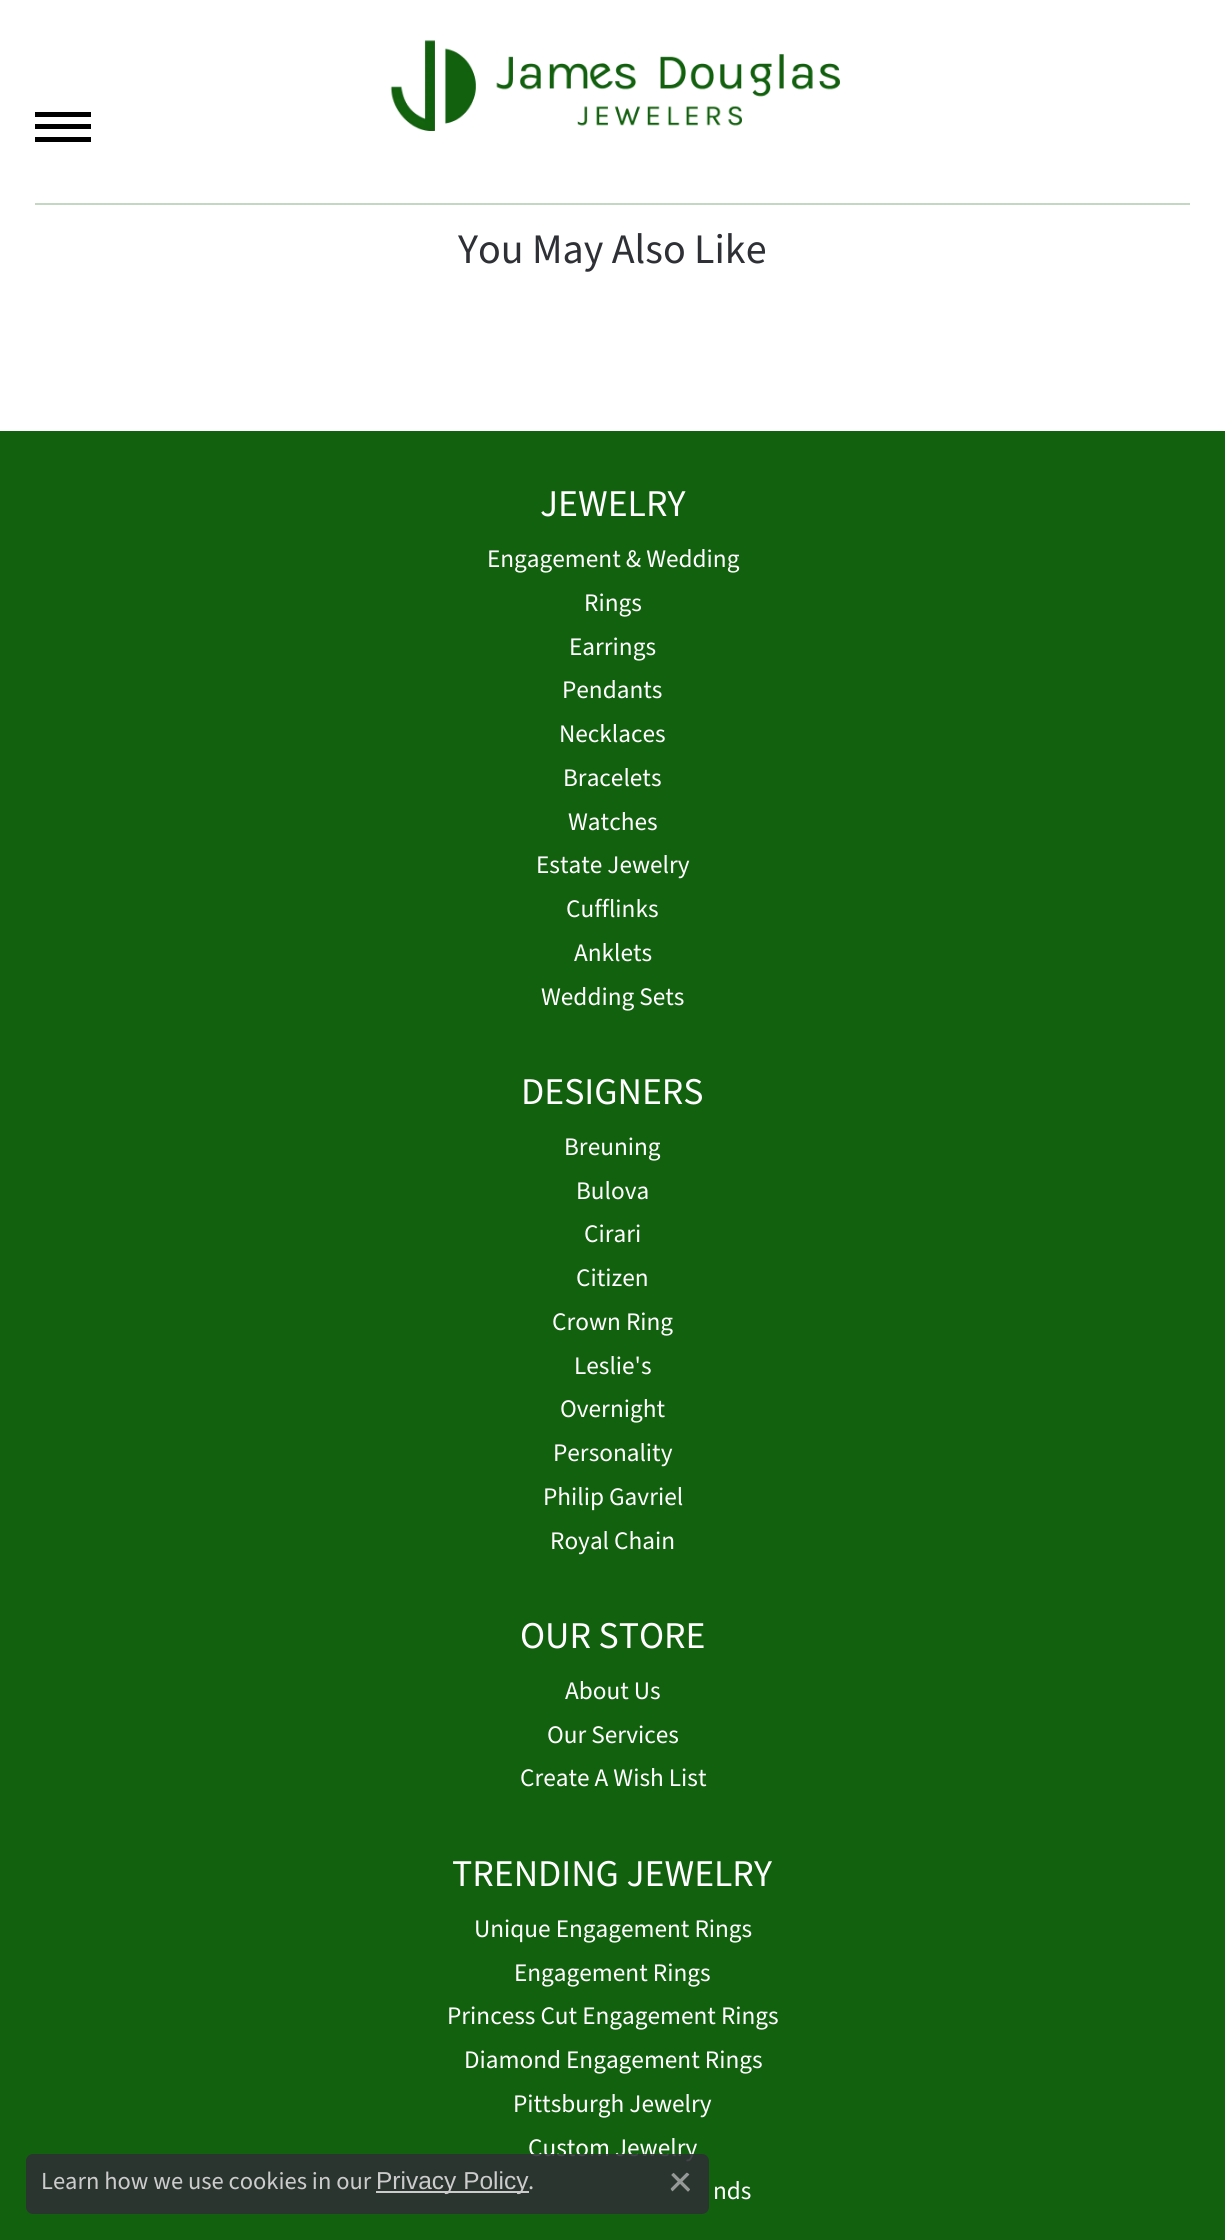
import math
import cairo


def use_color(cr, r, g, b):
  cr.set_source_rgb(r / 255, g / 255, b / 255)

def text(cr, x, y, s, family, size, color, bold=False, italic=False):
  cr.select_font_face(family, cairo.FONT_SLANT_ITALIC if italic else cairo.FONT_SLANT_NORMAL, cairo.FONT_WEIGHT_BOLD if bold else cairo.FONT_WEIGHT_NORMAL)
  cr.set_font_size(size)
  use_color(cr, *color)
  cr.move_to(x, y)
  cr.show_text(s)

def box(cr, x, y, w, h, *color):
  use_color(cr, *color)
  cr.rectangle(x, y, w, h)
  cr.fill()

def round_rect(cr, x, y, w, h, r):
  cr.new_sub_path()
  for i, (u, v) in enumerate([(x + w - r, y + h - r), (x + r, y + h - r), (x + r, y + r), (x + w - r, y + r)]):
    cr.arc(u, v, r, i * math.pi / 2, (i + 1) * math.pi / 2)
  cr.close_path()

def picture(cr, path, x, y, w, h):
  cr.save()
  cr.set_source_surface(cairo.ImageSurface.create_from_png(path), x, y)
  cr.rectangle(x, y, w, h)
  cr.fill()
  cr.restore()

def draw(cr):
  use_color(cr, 255, 255, 255)
  cr.paint()
  box(cr, 35, 112, 56, 5, 0, 0, 0)
  box(cr, 35, 124, 56, 5, 0, 0, 0)
  box(cr, 35, 137, 56, 5, 0, 0, 0)
  picture(cr, "img_01.png", 390, 40, 451, 91)
  box(cr, 35, 203, 1155, 2, 196, 215, 195)
  box(cr, 0, 431, 1225, 1809, 18, 97, 14)
  text(cr, 458, 263, "You May Also Like", "Source Sans Pro", 42, (46, 48, 53))
  text(cr, 540, 516, "JEWELRY", "Source Sans Pro", 37.75, (255, 255, 255))
  text(cr, 487, 567, "Engagement & Wedding", "Source Sans Pro", 25.25, (255, 255, 255))
  text(cr, 584, 611, "Rings", "Source Sans Pro", 25.25, (255, 255, 255))
  text(cr, 569, 655, "Earrings", "Source Sans Pro", 25.25, (255, 255, 255))
  text(cr, 562, 698, "Pendants", "Source Sans Pro", 25.25, (255, 255, 255))
  text(cr, 559, 742, "Necklaces", "Source Sans Pro", 25.25, (255, 255, 255))
  text(cr, 563, 786, "Bracelets", "Source Sans Pro", 25.25, (255, 255, 255))
  text(cr, 568, 830, "Watches", "Source Sans Pro", 25.25, (255, 255, 255))
  text(cr, 536, 873, "Estate Jewelry", "Source Sans Pro", 25.25, (255, 255, 255))
  text(cr, 566, 917, "Cufflinks", "Source Sans Pro", 25.25, (255, 255, 255))
  text(cr, 574, 961, "Anklets", "Source Sans Pro", 25.25, (255, 255, 255))
  text(cr, 541, 1005, "Wedding Sets", "Source Sans Pro", 25.25, (255, 255, 255))
  text(cr, 521, 1104, "DESIGNERS", "Source Sans Pro", 37.75, (255, 255, 255))
  text(cr, 564, 1155, "Breuning", "Source Sans Pro", 25.25, (255, 255, 255))
  text(cr, 576, 1199, "Bulova", "Source Sans Pro", 25.25, (255, 255, 255))
  text(cr, 584, 1242, "Cirari", "Source Sans Pro", 25.25, (255, 255, 255))
  text(cr, 576, 1286, "Citizen", "Source Sans Pro", 25.25, (255, 255, 255))
  text(cr, 552, 1330, "Crown Ring", "Source Sans Pro", 25.25, (255, 255, 255))
  text(cr, 574, 1374, "Leslie's", "Source Sans Pro", 25.25, (255, 255, 255))
  text(cr, 560, 1417, "Overnight", "Source Sans Pro", 25.25, (255, 255, 255))
  text(cr, 553, 1461, "Personality", "Source Sans Pro", 25.25, (255, 255, 255))
  text(cr, 543, 1505, "Philip Gavriel", "Source Sans Pro", 25.25, (255, 255, 255))
  text(cr, 550, 1549, "Royal Chain", "Source Sans Pro", 25.25, (255, 255, 255))
  text(cr, 520, 1648, "OUR STORE", "Source Sans Pro", 37.75, (255, 255, 255))
  text(cr, 565, 1699, "About Us", "Source Sans Pro", 25.25, (255, 255, 255))
  text(cr, 547, 1743, "Our Services", "Source Sans Pro", 25.25, (255, 255, 255))
  text(cr, 520, 1786, "Create A Wish List", "Source Sans Pro", 25.25, (255, 255, 255))
  text(cr, 452, 1886, "TRENDING JEWELRY", "Source Sans Pro", 37.75, (255, 255, 255))
  text(cr, 474, 1937, "Unique Engagement Rings", "Source Sans Pro", 25.25, (255, 255, 255))
  text(cr, 514, 1981, "Engagement Rings", "Source Sans Pro", 25.25, (255, 255, 255))
  text(cr, 447, 2024, "Princess Cut Engagement Rings", "Source Sans Pro", 25.25, (255, 255, 255))
  text(cr, 464, 2068, "Diamond Engagement Rings", "Source Sans Pro", 25.25, (255, 255, 255))
  text(cr, 513, 2112, "Pittsburgh Jewelry", "Source Sans Pro", 25.25, (255, 255, 255))
  text(cr, 528, 2156, "Custom Jewelry", "Source Sans Pro", 25.25, (255, 255, 255))
  cr.set_source_rgba(0.18, 0.188, 0.208, 0.9)
  round_rect(cr, 26, 2154, 683, 60, 7)
  cr.fill()
  picture(cr, "img_02.png", 670, 2172, 20, 20)
  text(cr, 528, 2189, ".", "Source Sans Pro", 24.5, (204, 204, 204))
  box(cr, 376, 2191, 153, 2, 204, 204, 204)
  text(cr, 376, 2189, "Privacy Policy", "Liberation Sans", 24.5, (204, 204, 204))
  text(cr, 41, 2189, "Learn how we use cookies in our", "Source Sans Pro", 24.5, (204, 204, 204))
  text(cr, 713, 2199, "nds", "Source Sans Pro", 25.25, (255, 255, 255))


surface = cairo.ImageSurface(cairo.FORMAT_RGB24, 1225, 2240)
cr = cairo.Context(surface)
options = cairo.FontOptions()
options.set_hint_metrics(cairo.HINT_METRICS_OFF)
options.set_hint_style(cairo.HINT_STYLE_NONE)
cr.set_font_options(options)
cr.set_miter_limit(4)
draw(cr)
surface.write_to_png("out.png")
